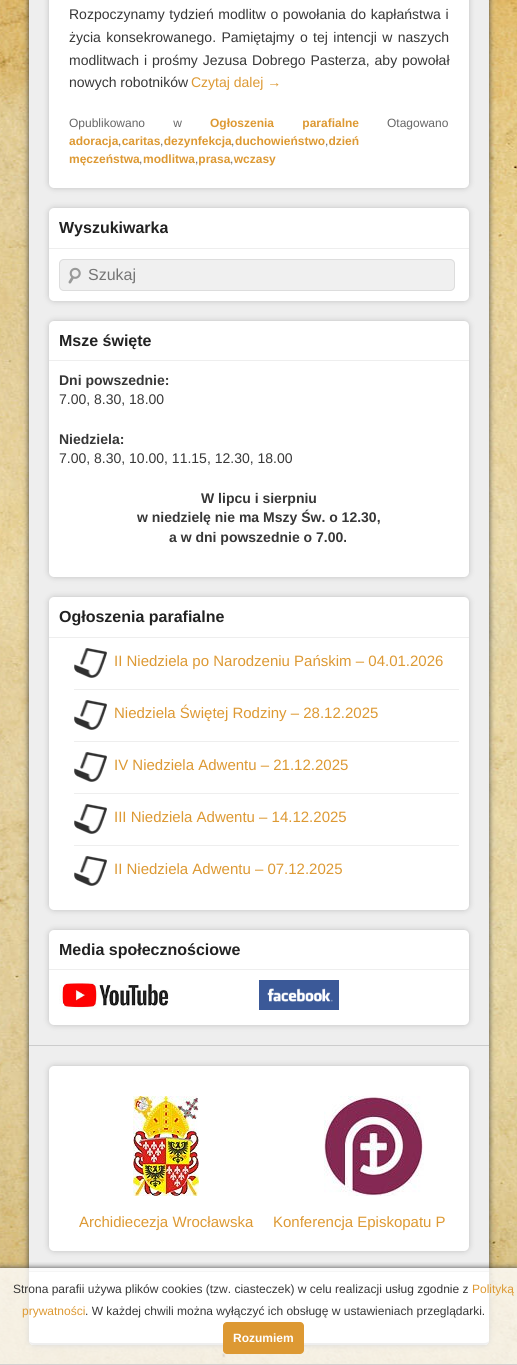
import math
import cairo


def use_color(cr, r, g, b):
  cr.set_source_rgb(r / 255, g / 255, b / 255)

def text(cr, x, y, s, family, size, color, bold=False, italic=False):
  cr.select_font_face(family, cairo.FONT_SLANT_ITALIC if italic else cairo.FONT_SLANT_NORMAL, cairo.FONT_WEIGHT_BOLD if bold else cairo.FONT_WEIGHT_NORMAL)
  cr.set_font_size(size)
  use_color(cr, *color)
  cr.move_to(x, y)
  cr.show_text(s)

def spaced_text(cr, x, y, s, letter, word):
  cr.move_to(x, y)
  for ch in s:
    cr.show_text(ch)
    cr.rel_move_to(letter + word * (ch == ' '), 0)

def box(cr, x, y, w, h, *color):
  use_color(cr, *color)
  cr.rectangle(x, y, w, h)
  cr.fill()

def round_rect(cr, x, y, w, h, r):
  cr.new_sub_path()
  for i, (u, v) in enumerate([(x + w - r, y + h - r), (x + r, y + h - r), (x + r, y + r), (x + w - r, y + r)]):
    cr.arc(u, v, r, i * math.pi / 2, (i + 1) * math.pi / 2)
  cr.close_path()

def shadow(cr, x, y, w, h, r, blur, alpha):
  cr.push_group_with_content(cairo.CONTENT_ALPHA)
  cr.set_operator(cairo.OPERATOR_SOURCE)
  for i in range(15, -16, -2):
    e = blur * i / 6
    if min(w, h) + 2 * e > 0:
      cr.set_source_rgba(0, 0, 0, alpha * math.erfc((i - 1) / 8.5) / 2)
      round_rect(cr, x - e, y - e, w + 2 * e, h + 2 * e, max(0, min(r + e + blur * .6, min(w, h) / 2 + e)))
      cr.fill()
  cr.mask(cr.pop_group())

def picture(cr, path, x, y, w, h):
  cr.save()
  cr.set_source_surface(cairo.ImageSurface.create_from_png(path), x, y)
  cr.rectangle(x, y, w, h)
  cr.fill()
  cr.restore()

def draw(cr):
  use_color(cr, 255, 255, 255)
  cr.paint()
  picture(cr, "img_01.png", 0, 0, 517, 1364)
  use_color(cr, 64, 64, 64)
  shadow(cr, 29, -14, 460, 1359, 5, 3, 1)
  use_color(cr, 238, 238, 238)
  round_rect(cr, 29, -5, 460, 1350, 5)
  cr.fill()
  use_color(cr, 0, 0, 0)
  shadow(cr, 49, -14, 420, 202, 5, 3, 0.2)
  use_color(cr, 255, 255, 255)
  round_rect(cr, 49, -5, 420, 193, 5)
  cr.fill()
  use_color(cr, 0, 0, 0)
  shadow(cr, 49, 208, 420, 93, 5, 3, 0.2)
  use_color(cr, 255, 255, 255)
  round_rect(cr, 49, 208, 420, 93, 5)
  cr.fill()
  box(cr, 49, 248, 420, 1, 238, 238, 238)
  use_color(cr, 240, 240, 240)
  round_rect(cr, 59, 259, 396, 32, 5)
  cr.fill()
  picture(cr, "img_02.png", 68, 267, 13, 17)
  round_rect(cr, 59.5, 259.5, 395, 31, 4.5)
  use_color(cr, 221, 221, 221)
  cr.set_line_width(1)
  cr.stroke()
  use_color(cr, 0, 0, 0)
  shadow(cr, 49, 321, 420, 256, 5, 3, 0.2)
  use_color(cr, 255, 255, 255)
  round_rect(cr, 49, 321, 420, 256, 5)
  cr.fill()
  box(cr, 49, 360, 420, 1, 238, 238, 238)
  use_color(cr, 0, 0, 0)
  shadow(cr, 49, 597, 420, 313, 5, 3, 0.2)
  use_color(cr, 255, 255, 255)
  round_rect(cr, 49, 597, 420, 313, 5)
  cr.fill()
  box(cr, 49, 637, 420, 1, 238, 238, 238)
  picture(cr, "img_03.png", 74, 648, 33, 30)
  box(cr, 74, 689, 385, 1, 238, 238, 238)
  picture(cr, "img_03.png", 74, 700, 33, 30)
  box(cr, 74, 741, 385, 1, 238, 238, 238)
  picture(cr, "img_03.png", 74, 752, 33, 30)
  box(cr, 74, 793, 385, 1, 238, 238, 238)
  picture(cr, "img_03.png", 74, 804, 33, 30)
  box(cr, 74, 845, 385, 1, 238, 238, 238)
  picture(cr, "img_03.png", 74, 856, 33, 30)
  use_color(cr, 0, 0, 0)
  shadow(cr, 49, 930, 420, 95, 5, 3, 0.2)
  use_color(cr, 255, 255, 255)
  round_rect(cr, 49, 930, 420, 95, 5)
  cr.fill()
  box(cr, 49, 969, 420, 1, 238, 238, 238)
  picture(cr, "img_04.png", 59, 980, 110, 29)
  picture(cr, "img_05.png", 259, 980, 80, 30)
  box(cr, 29, 1045, 460, 1, 204, 204, 204)
  use_color(cr, 0, 0, 0)
  shadow(cr, 49, 1066, 420, 185, 5, 3, 0.2)
  use_color(cr, 255, 255, 255)
  round_rect(cr, 49, 1066, 420, 185, 5)
  cr.fill()
  picture(cr, "img_06.png", 133, 1096, 66, 100)
  picture(cr, "img_07.png", 324, 1096, 100, 100)
  cr.new_path()
  cr.move_to(29, 1271)
  cr.line_to(489, 1271)
  cr.line_to(489, 1340)
  cr.curve_to(489, 1343, 487, 1345, 484, 1345)
  cr.line_to(34, 1345)
  cr.curve_to(31, 1345, 29, 1343, 29, 1340)
  cr.close_path()
  cr.fill()
  box(cr, 29, 1271, 460, 1, 204, 204, 204)
  use_color(cr, 170, 170, 170)
  cr.new_path()
  cr.move_to(34, 1345)
  cr.line_to(484, 1345)
  cr.curve_to(487, 1345, 489, 1343, 489, 1340)
  cr.curve_to(489, 1342, 487, 1343, 484, 1343)
  cr.line_to(34, 1343)
  cr.curve_to(31, 1343, 29, 1342, 29, 1340)
  cr.curve_to(29, 1343, 31, 1345, 34, 1345)
  cr.close_path()
  cr.fill()
  cr.save()
  cr.rectangle(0, 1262, 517, 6)
  cr.clip()
  use_color(cr, 64, 64, 64)
  shadow(cr, 0, 1268, 517, 97, 0, 3, 1)
  cr.restore()
  cr.set_source_rgba(1, 1, 1, 0.8)
  cr.rectangle(0, 1268, 517, 96)
  cr.fill()
  box(cr, 0, 1364, 517, 1, 211, 208, 208)
  use_color(cr, 221, 153, 51)
  round_rect(cr, 223, 1322, 81, 32, 4)
  cr.fill()
  cr.select_font_face("Liberation Sans")
  cr.set_font_size(14)
  use_color(cr, 55, 55, 55)
  spaced_text(cr, 69, 19, "Rozpoczynamy tydzień modlitw o powołania do kapłaństwa i", 0, 0.75)
  spaced_text(cr, 69, 42, "życia konsekrowanego. Pamiętajmy o tej intencji w naszych", 0, 1.5)
  spaced_text(cr, 69, 65, "modlitwach i prośmy Jezusa Dobrego Pasterza, aby powołał", 0, 1)
  text(cr, 69, 87, "nowych robotników", "Liberation Sans", 14, (55, 55, 55))
  text(cr, 191, 87, "Czytaj dalej →", "Liberation Sans", 14, (221, 153, 51))
  cr.set_font_size(12)
  use_color(cr, 102, 102, 102)
  spaced_text(cr, 69, 127, "Opublikowano w", 0, 25)
  cr.select_font_face("Liberation Sans", cairo.FONT_SLANT_NORMAL, cairo.FONT_WEIGHT_BOLD)
  use_color(cr, 221, 153, 51)
  spaced_text(cr, 210, 127, "Ogłoszenia parafialne", 0, 25)
  text(cr, 387, 127, "Otagowano", "Liberation Sans", 12, (102, 102, 102))
  text(cr, 69, 145, "adoracja caritas dezynfekcja duchowieństwo dzień", "Liberation Sans", 12, (221, 153, 51), bold=True)
  text(cr, 118, 145, ",", "Liberation Sans", 12, (102, 102, 102))
  text(cr, 160, 145, ",", "Liberation Sans", 12, (102, 102, 102))
  text(cr, 231, 145, ",", "Liberation Sans", 12, (102, 102, 102))
  text(cr, 325, 145, ",", "Liberation Sans", 12, (102, 102, 102))
  text(cr, 69, 163, "męczeństwa modlitwa prasa wczasy", "Liberation Sans", 12, (221, 153, 51), bold=True)
  text(cr, 139, 163, ",", "Liberation Sans", 12, (102, 102, 102))
  text(cr, 195, 163, ",", "Liberation Sans", 12, (102, 102, 102))
  text(cr, 230, 163, ",", "Liberation Sans", 12, (102, 102, 102))
  text(cr, 59, 233, "Wyszukiwarka", "Liberation Sans", 16, (34, 34, 34), bold=True)
  text(cr, 88, 280, "Szukaj", "Liberation Sans", 16, (117, 117, 117))
  text(cr, 59, 346, "Msze święte", "Liberation Sans", 16, (34, 34, 34), bold=True)
  text(cr, 59, 385, "Dni powszednie:", "Liberation Sans", 14, (55, 55, 55), bold=True)
  text(cr, 59, 404, "7.00, 8.30, 18.00", "Liberation Sans", 14, (55, 55, 55))
  text(cr, 59, 444, "Niedziela:", "Liberation Sans", 14, (55, 55, 55), bold=True)
  text(cr, 59, 463, "7.00, 8.30, 10.00, 11.15, 12.30, 18.00", "Liberation Sans", 14, (55, 55, 55))
  text(cr, 201, 503, "W lipcu i sierpniu", "Liberation Sans", 14, (55, 55, 55), bold=True)
  text(cr, 137, 522, "w niedzielę nie ma Mszy Św. o 12.30,", "Liberation Sans", 14, (55, 55, 55), bold=True)
  text(cr, 169, 542, "a w dni powszednie o 7.00.", "Liberation Sans", 14, (55, 55, 55), bold=True)
  text(cr, 59, 622, "Ogłoszenia parafialne", "Liberation Sans", 16, (34, 34, 34), bold=True)
  text(cr, 114, 666, "II Niedziela po Narodzeniu Pańskim – 04.01.2026", "Liberation Sans", 15, (221, 153, 51))
  text(cr, 114, 718, "Niedziela Świętej Rodziny – 28.12.2025", "Liberation Sans", 15, (221, 153, 51))
  text(cr, 114, 770, "IV Niedziela Adwentu – 21.12.2025", "Liberation Sans", 15, (221, 153, 51))
  text(cr, 114, 822, "III Niedziela Adwentu – 14.12.2025", "Liberation Sans", 15, (221, 153, 51))
  text(cr, 114, 874, "II Niedziela Adwentu – 07.12.2025", "Liberation Sans", 15, (221, 153, 51))
  text(cr, 59, 955, "Media społecznościowe", "Liberation Sans", 16, (34, 34, 34), bold=True)
  text(cr, 79, 1227, "Archidiecezja Wrocławska", "Liberation Sans", 15, (221, 153, 51))
  text(cr, 273, 1227, "Konferencja Episkopatu P", "Liberation Sans", 15, (221, 153, 51))
  text(cr, 13, 1293, "Strona parafii używa plików cookies (tzw. ciasteczek) w celu realizacji usług zgodnie z", "Liberation Sans", 12, (55, 55, 55))
  text(cr, 472, 1293, "Polityką", "Liberation Sans", 12, (221, 153, 51))
  text(cr, 22, 1315, "prywatności", "Liberation Sans", 12, (221, 153, 51))
  text(cr, 85, 1315, ". W każdej chwili można wyłączyć ich obsługę w ustawieniach przeglądarki.", "Liberation Sans", 12, (55, 55, 55))
  text(cr, 233, 1342, "Rozumiem", "Liberation Sans", 12, (255, 255, 255), bold=True)


surface = cairo.ImageSurface(cairo.FORMAT_RGB24, 517, 1365)
cr = cairo.Context(surface)
options = cairo.FontOptions()
options.set_hint_metrics(cairo.HINT_METRICS_OFF)
options.set_hint_style(cairo.HINT_STYLE_NONE)
cr.set_font_options(options)
cr.set_miter_limit(4)
draw(cr)
surface.write_to_png("out.png")
